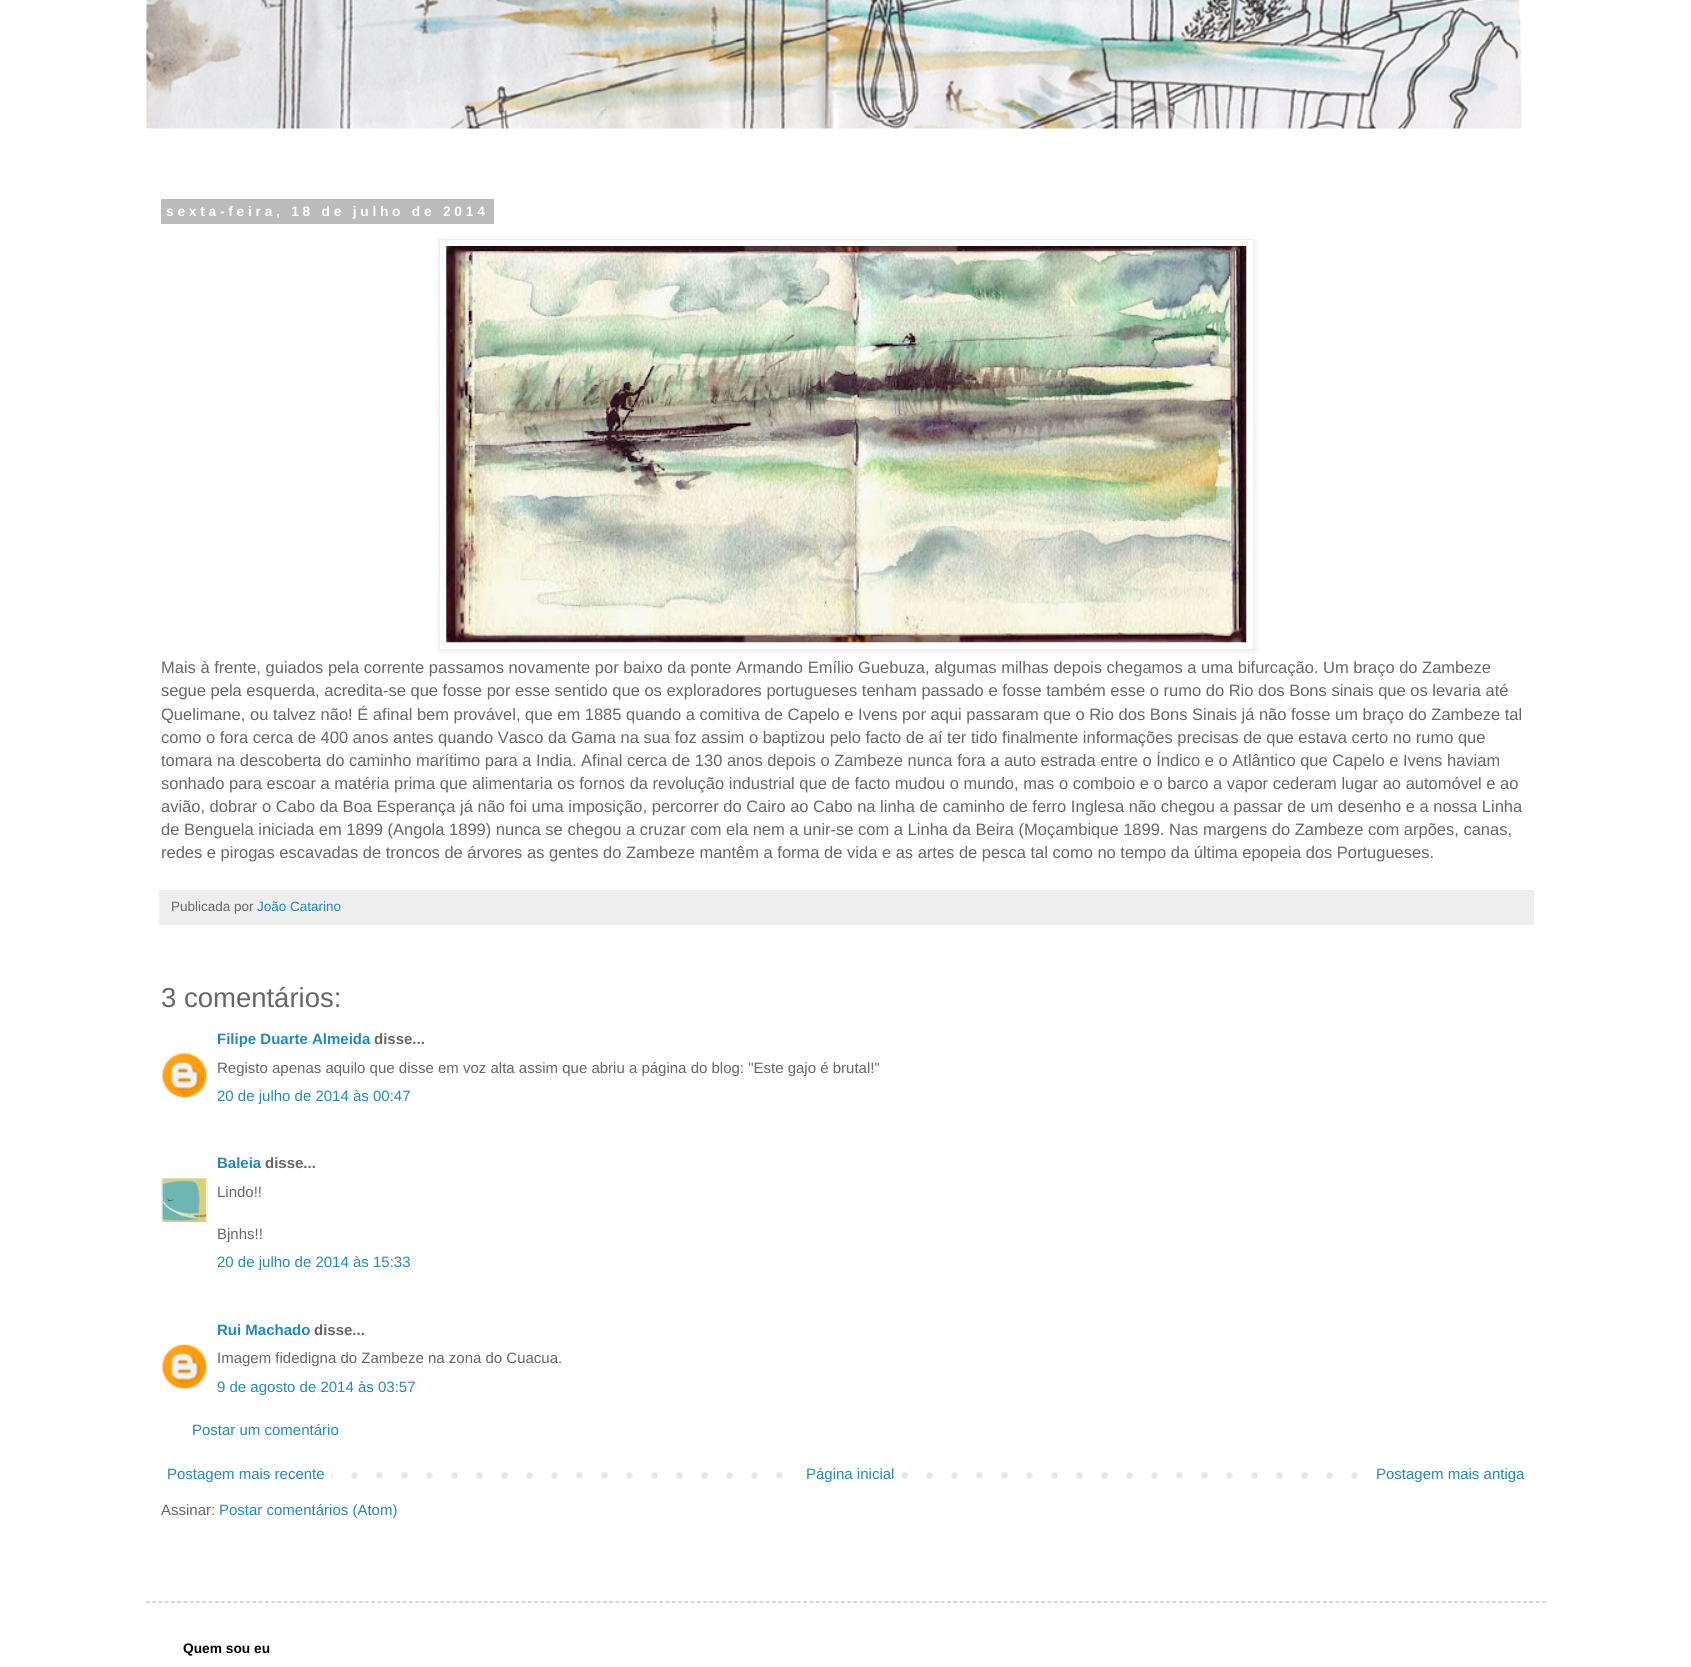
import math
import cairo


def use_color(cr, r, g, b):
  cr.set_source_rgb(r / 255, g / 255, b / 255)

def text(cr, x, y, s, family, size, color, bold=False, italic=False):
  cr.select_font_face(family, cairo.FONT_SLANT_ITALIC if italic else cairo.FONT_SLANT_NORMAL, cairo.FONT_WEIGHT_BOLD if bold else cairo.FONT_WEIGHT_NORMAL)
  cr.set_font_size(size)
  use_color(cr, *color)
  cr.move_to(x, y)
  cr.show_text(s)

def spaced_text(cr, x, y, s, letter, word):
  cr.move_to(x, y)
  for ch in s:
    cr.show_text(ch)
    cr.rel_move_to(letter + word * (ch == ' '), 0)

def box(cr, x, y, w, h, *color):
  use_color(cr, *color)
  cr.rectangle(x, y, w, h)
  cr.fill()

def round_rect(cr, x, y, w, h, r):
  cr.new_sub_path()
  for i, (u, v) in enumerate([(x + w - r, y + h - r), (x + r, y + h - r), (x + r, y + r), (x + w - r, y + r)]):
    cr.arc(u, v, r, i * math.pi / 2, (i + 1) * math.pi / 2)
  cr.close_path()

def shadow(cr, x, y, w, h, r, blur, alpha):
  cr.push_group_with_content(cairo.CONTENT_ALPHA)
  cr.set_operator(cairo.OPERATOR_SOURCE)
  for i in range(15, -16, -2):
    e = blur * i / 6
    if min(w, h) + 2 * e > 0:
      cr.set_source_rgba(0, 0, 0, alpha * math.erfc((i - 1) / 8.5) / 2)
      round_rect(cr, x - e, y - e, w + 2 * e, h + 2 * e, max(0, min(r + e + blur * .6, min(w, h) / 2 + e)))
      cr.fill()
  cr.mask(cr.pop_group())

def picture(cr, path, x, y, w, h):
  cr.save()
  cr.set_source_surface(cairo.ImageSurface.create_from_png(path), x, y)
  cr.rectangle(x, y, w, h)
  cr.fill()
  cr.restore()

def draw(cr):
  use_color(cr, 255, 255, 255)
  cr.paint()
  picture(cr, "img_01.png", 146, 0, 1376, 129)
  box(cr, 161, 199, 333, 25, 187, 187, 187)
  use_color(cr, 0, 0, 0)
  shadow(cr, 440, 240, 815, 411, 0, 3, 0.1)
  use_color(cr, 255, 255, 255)
  cr.rectangle(439.5, 239.5, 814, 410)
  cr.fill_preserve()
  use_color(cr, 238, 238, 238)
  cr.set_line_width(1)
  cr.stroke()
  picture(cr, "img_02.png", 446, 246, 801, 397)
  box(cr, 159, 890, 1375, 35, 238, 238, 238)
  picture(cr, "img_03.png", 162, 1053, 45, 45)
  cr.save()
  cr.rectangle(161, 1178, 47, 45)
  cr.clip()
  cr.rectangle(161.5, 1178.5, 46, 45)
  cr.stroke()
  cr.restore()
  picture(cr, "img_04.png", 162, 1178, 45, 45)
  picture(cr, "img_05.png", 162, 1344, 45, 45)
  picture(cr, "img_06.png", 331, 1472, 1201, 7)
  box(cr, 801, 1472, 83, 7, 255, 255, 255)
  box(cr, 1376, 1472, 155, 7, 255, 255, 255)
  cr.new_path()
  cr.move_to(146, 1602)
  cr.line_to(1546, 1602)
  use_color(cr, 187, 187, 187)
  cr.set_line_width(1.2)
  cr.set_dash([3.75, 2.51])
  cr.stroke()
  cr.select_font_face("Liberation Sans", cairo.FONT_SLANT_NORMAL, cairo.FONT_WEIGHT_BOLD)
  cr.set_font_size(13.75)
  use_color(cr, 255, 255, 255)
  spaced_text(cr, 166, 216, "sexta-feira, 18 de julho de 2014", 3.75, 0)
  text(cr, 161, 673, "Mais à frente, guiados pela corrente passamos novamente por baixo da ponte Armando Emílio Guebuza, algumas milhas depois chegamos a uma bifurcação. Um braço do Zambeze", "Liberation Sans", 16.5, (102, 102, 102))
  text(cr, 161, 696, "segue pela esquerda, acredita-se que fosse por esse sentido que os exploradores portugueses tenham passado e fosse também esse o rumo do Rio dos Bons sinais que os levaria até", "Liberation Sans", 16.5, (102, 102, 102))
  text(cr, 161, 720, "Quelimane, ou talvez não! É afinal bem provável, que em 1885 quando a comitiva de Capelo e Ivens por aqui passaram que o Rio dos Bons Sinais já não fosse um braço do Zambeze tal", "Liberation Sans", 16.5, (102, 102, 102))
  text(cr, 161, 743, "como o fora cerca de 400 anos antes quando Vasco da Gama na sua foz assim o baptizou pelo facto de aí ter tido finalmente informações precisas de que estava certo no rumo que", "Liberation Sans", 16.5, (102, 102, 102))
  text(cr, 161, 766, "tomara na descoberta do caminho marítimo para a India. Afinal cerca de 130 anos depois o Zambeze nunca fora a auto estrada entre o Índico e o Atlântico que Capelo e Ivens haviam", "Liberation Sans", 16.5, (102, 102, 102))
  text(cr, 161, 789, "sonhado para escoar a matéria prima que alimentaria os fornos da revolução industrial que de facto mudou o mundo, mas o comboio e o barco a vapor cederam lugar ao automóvel e ao", "Liberation Sans", 16.5, (102, 102, 102))
  text(cr, 161, 812, "avião, dobrar o Cabo da Boa Esperança já não foi uma imposição, percorrer do Cairo ao Cabo na linha de caminho de ferro Inglesa não chegou a passar de um desenho e a nossa Linha", "Liberation Sans", 16.5, (102, 102, 102))
  text(cr, 161, 835, "de Benguela iniciada em 1899 (Angola 1899) nunca se chegou a cruzar com ela nem a unir-se com a Linha da Beira (Moçambique 1899. Nas margens do Zambeze com arpões, canas,", "Liberation Sans", 16.5, (102, 102, 102))
  text(cr, 161, 858, "redes e pirogas escavadas de troncos de árvores as gentes do Zambeze mantêm a forma de vida e as artes de pesca tal como no tempo da última epopeia dos Portugueses.", "Liberation Sans", 16.5, (102, 102, 102))
  text(cr, 171, 911, "Publicada por", "Liberation Sans", 13.5, (102, 102, 102))
  text(cr, 257, 911, "João Catarino", "Liberation Sans", 13.5, (34, 136, 187))
  text(cr, 161, 1007, "3 comentários:", "Liberation Sans", 27.5, (102, 102, 102))
  text(cr, 217, 1044, "Filipe Duarte Almeida", "Liberation Sans", 15, (34, 136, 187), bold=True)
  text(cr, 374, 1044, "disse...", "Liberation Sans", 15, (102, 102, 102), bold=True)
  text(cr, 217, 1073, "Registo apenas aquilo que disse em voz alta assim que abriu a página do blog: \"Este gajo é brutal!\"", "Liberation Sans", 15, (102, 102, 102))
  text(cr, 217, 1101, "20 de julho de 2014 às 00:47", "Liberation Sans", 15, (34, 136, 187))
  text(cr, 217, 1168, "Baleia", "Liberation Sans", 15, (34, 136, 187), bold=True)
  text(cr, 265, 1168, "disse...", "Liberation Sans", 15, (102, 102, 102), bold=True)
  text(cr, 217, 1197, "Lindo!!", "Liberation Sans", 15, (102, 102, 102))
  text(cr, 217, 1239, "Bjnhs!!", "Liberation Sans", 15, (102, 102, 102))
  text(cr, 217, 1267, "20 de julho de 2014 às 15:33", "Liberation Sans", 15, (34, 136, 187))
  text(cr, 217, 1335, "Rui Machado", "Liberation Sans", 15, (34, 136, 187), bold=True)
  text(cr, 314, 1335, "disse...", "Liberation Sans", 15, (102, 102, 102), bold=True)
  text(cr, 217, 1363, "Imagem fidedigna do Zambeze na zona do Cuacua.", "Liberation Sans", 15, (102, 102, 102))
  text(cr, 217, 1392, "9 de agosto de 2014 às 03:57", "Liberation Sans", 15, (34, 136, 187))
  text(cr, 192, 1435, "Postar um comentário", "Liberation Sans", 15, (34, 136, 187))
  text(cr, 167, 1479, "Postagem mais recente", "Liberation Sans", 15, (34, 136, 187))
  text(cr, 806, 1479, "Página inicial", "Liberation Sans", 15, (34, 136, 187))
  text(cr, 1376, 1479, "Postagem mais antiga", "Liberation Sans", 15, (34, 136, 187))
  text(cr, 161, 1515, "Assinar:", "Liberation Sans", 15, (102, 102, 102))
  text(cr, 219, 1515, "Postar comentários (Atom)", "Liberation Sans", 15, (34, 136, 187))
  text(cr, 183, 1653, "Quem sou eu", "Liberation Sans", 13.75, (0, 0, 0), bold=True)


surface = cairo.ImageSurface(cairo.FORMAT_RGB24, 1691, 1667)
cr = cairo.Context(surface)
options = cairo.FontOptions()
options.set_hint_metrics(cairo.HINT_METRICS_OFF)
options.set_hint_style(cairo.HINT_STYLE_NONE)
cr.set_font_options(options)
cr.set_miter_limit(4)
draw(cr)
surface.write_to_png("out.png")
